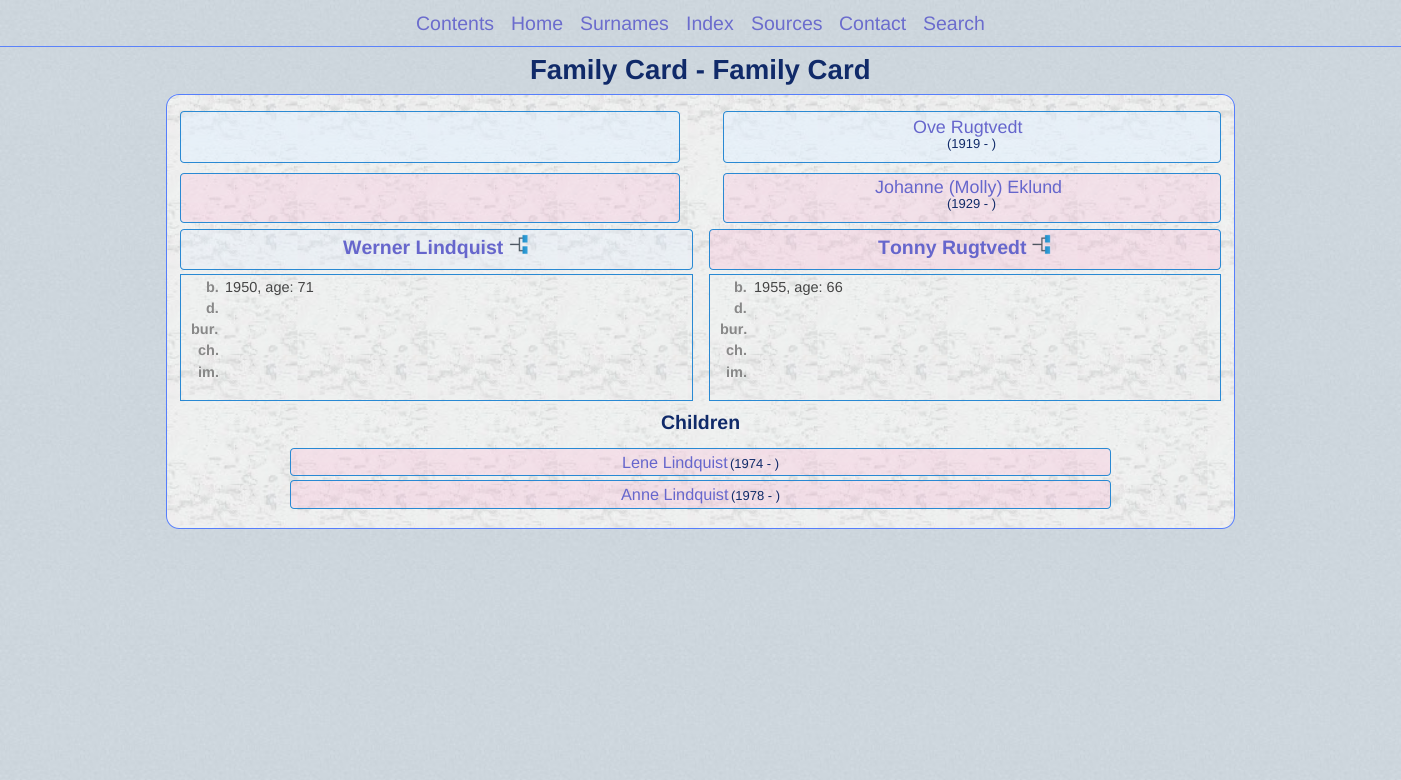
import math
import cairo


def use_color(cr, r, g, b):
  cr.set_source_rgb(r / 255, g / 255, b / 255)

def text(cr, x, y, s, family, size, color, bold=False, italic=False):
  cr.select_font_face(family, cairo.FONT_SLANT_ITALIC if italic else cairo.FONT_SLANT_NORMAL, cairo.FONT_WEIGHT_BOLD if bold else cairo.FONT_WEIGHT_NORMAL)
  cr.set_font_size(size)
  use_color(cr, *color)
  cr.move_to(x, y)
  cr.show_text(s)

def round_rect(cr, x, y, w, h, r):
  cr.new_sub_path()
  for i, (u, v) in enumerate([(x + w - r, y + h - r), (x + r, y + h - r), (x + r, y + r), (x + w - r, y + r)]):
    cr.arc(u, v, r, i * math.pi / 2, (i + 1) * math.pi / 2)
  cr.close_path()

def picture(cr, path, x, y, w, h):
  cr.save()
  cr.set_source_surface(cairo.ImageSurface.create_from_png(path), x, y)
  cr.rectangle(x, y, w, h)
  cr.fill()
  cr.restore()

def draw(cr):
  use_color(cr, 255, 255, 255)
  cr.paint()
  picture(cr, "img_01.png", 0, 0, 1401, 780)
  picture(cr, "img_02.png", 0, 46, 1401, 1)
  cr.set_source_rgba(0.337, 0.494, 0.988, 0.95)
  cr.rectangle(0, 46, 1401, 1)
  cr.fill()
  picture(cr, "img_03.png", 166, 94, 1069, 435)
  round_rect(cr, 166.5, 94.5, 1068, 434, 12.5)
  use_color(cr, 86, 126, 252)
  cr.set_line_width(1)
  cr.stroke()
  cr.set_source_rgba(0.878, 0.937, 0.996, 0.51)
  round_rect(cr, 180.5, 111.5, 499, 51, 3.5)
  cr.fill_preserve()
  use_color(cr, 41, 137, 211)
  cr.stroke()
  cr.set_source_rgba(0.878, 0.937, 0.996, 0.51)
  round_rect(cr, 723.5, 111.5, 497, 51, 3.5)
  cr.fill_preserve()
  use_color(cr, 41, 137, 211)
  cr.stroke()
  cr.set_source_rgba(0.988, 0.718, 0.839, 0.28)
  round_rect(cr, 180.5, 173.5, 499, 49, 3.5)
  cr.fill_preserve()
  use_color(cr, 41, 137, 211)
  cr.stroke()
  cr.set_source_rgba(0.988, 0.718, 0.839, 0.28)
  round_rect(cr, 723.5, 173.5, 497, 49, 3.5)
  cr.fill_preserve()
  use_color(cr, 41, 137, 211)
  cr.stroke()
  cr.set_source_rgba(0.878, 0.937, 0.996, 0.3)
  round_rect(cr, 180.5, 229.5, 512, 40, 3.5)
  cr.fill_preserve()
  use_color(cr, 41, 137, 211)
  cr.stroke()
  picture(cr, "img_04.png", 509, 234, 19, 20)
  cr.set_source_rgba(0.988, 0.718, 0.839, 0.3)
  round_rect(cr, 709.5, 229.5, 511, 40, 3.5)
  cr.fill_preserve()
  use_color(cr, 41, 137, 211)
  cr.stroke()
  picture(cr, "img_05.png", 1032, 234, 19, 20)
  cr.rectangle(180.5, 274.5, 512, 126)
  cr.stroke()
  cr.rectangle(709.5, 274.5, 511, 126)
  cr.stroke()
  cr.set_source_rgba(0.988, 0.718, 0.839, 0.3)
  round_rect(cr, 290.5, 448.5, 820, 27, 3.5)
  cr.fill_preserve()
  use_color(cr, 41, 137, 211)
  cr.stroke()
  cr.set_source_rgba(0.988, 0.718, 0.839, 0.3)
  round_rect(cr, 290.5, 480.5, 820, 28, 3.5)
  cr.fill_preserve()
  use_color(cr, 41, 137, 211)
  cr.stroke()
  text(cr, 416, 30, "Contents", "Liberation Sans", 19.5, (107, 108, 205))
  text(cr, 511, 30, "Home", "Liberation Sans", 19.5, (107, 108, 205))
  text(cr, 580, 30, "Surnames", "Liberation Sans", 19.5, (107, 108, 205))
  text(cr, 686, 30, "Index", "Liberation Sans", 19.5, (107, 108, 205))
  text(cr, 751, 30, "Sources", "Liberation Sans", 19.5, (107, 108, 205))
  text(cr, 839, 30, "Contact", "Liberation Sans", 19.5, (107, 108, 205))
  text(cr, 923, 30, "Search", "Liberation Sans", 19.5, (107, 108, 205))
  text(cr, 530, 79, "Family Card - Family Card", "Liberation Sans", 27.6, (16, 42, 105), bold=True)
  text(cr, 913, 133, "Ove Rugtvedt", "Liberation Sans", 17.9, (102, 102, 204))
  text(cr, 947, 148, "(1919 - )", "Liberation Sans", 13, (16, 42, 105))
  text(cr, 875, 193, "Johanne (Molly) Eklund", "Liberation Sans", 17.9, (102, 102, 204))
  text(cr, 947, 208, "(1929 - )", "Liberation Sans", 13, (16, 42, 105))
  text(cr, 343, 254, "Werner Lindquist", "Liberation Sans", 19.5, (102, 102, 204), bold=True)
  text(cr, 878, 254, "Tonny Rugtvedt", "Liberation Sans", 19.5, (102, 102, 204), bold=True)
  text(cr, 206, 292, "b.", "Liberation Sans", 14.5, (136, 136, 136), bold=True)
  text(cr, 225, 292, "1950, age: 71", "Liberation Sans", 14.5, (68, 68, 68))
  text(cr, 206, 313, "d.", "Liberation Sans", 14.5, (136, 136, 136), bold=True)
  text(cr, 191, 334, "bur.", "Liberation Sans", 14.5, (136, 136, 136), bold=True)
  text(cr, 198, 355, "ch.", "Liberation Sans", 14.5, (136, 136, 136), bold=True)
  text(cr, 198, 377, "im.", "Liberation Sans", 14.5, (136, 136, 136), bold=True)
  text(cr, 734, 292, "b.", "Liberation Sans", 14.5, (136, 136, 136), bold=True)
  text(cr, 754, 292, "1955, age: 66", "Liberation Sans", 14.5, (68, 68, 68))
  text(cr, 734, 313, "d.", "Liberation Sans", 14.5, (136, 136, 136), bold=True)
  text(cr, 720, 334, "bur.", "Liberation Sans", 14.5, (136, 136, 136), bold=True)
  text(cr, 726, 355, "ch.", "Liberation Sans", 14.5, (136, 136, 136), bold=True)
  text(cr, 726, 377, "im.", "Liberation Sans", 14.5, (136, 136, 136), bold=True)
  text(cr, 661, 429, "Children", "Liberation Sans", 19.5, (16, 42, 105), bold=True)
  text(cr, 622, 468, "Lene Lindquist", "Liberation Sans", 16.25, (102, 102, 204))
  text(cr, 730, 468, "(1974 - )", "Liberation Sans", 13, (16, 42, 105))
  text(cr, 621, 500, "Anne Lindquist", "Liberation Sans", 16.25, (102, 102, 204))
  text(cr, 731, 500, "(1978 - )", "Liberation Sans", 13, (16, 42, 105))


surface = cairo.ImageSurface(cairo.FORMAT_RGB24, 1401, 780)
cr = cairo.Context(surface)
options = cairo.FontOptions()
options.set_hint_metrics(cairo.HINT_METRICS_OFF)
options.set_hint_style(cairo.HINT_STYLE_NONE)
cr.set_font_options(options)
cr.set_miter_limit(4)
draw(cr)
surface.write_to_png("out.png")
